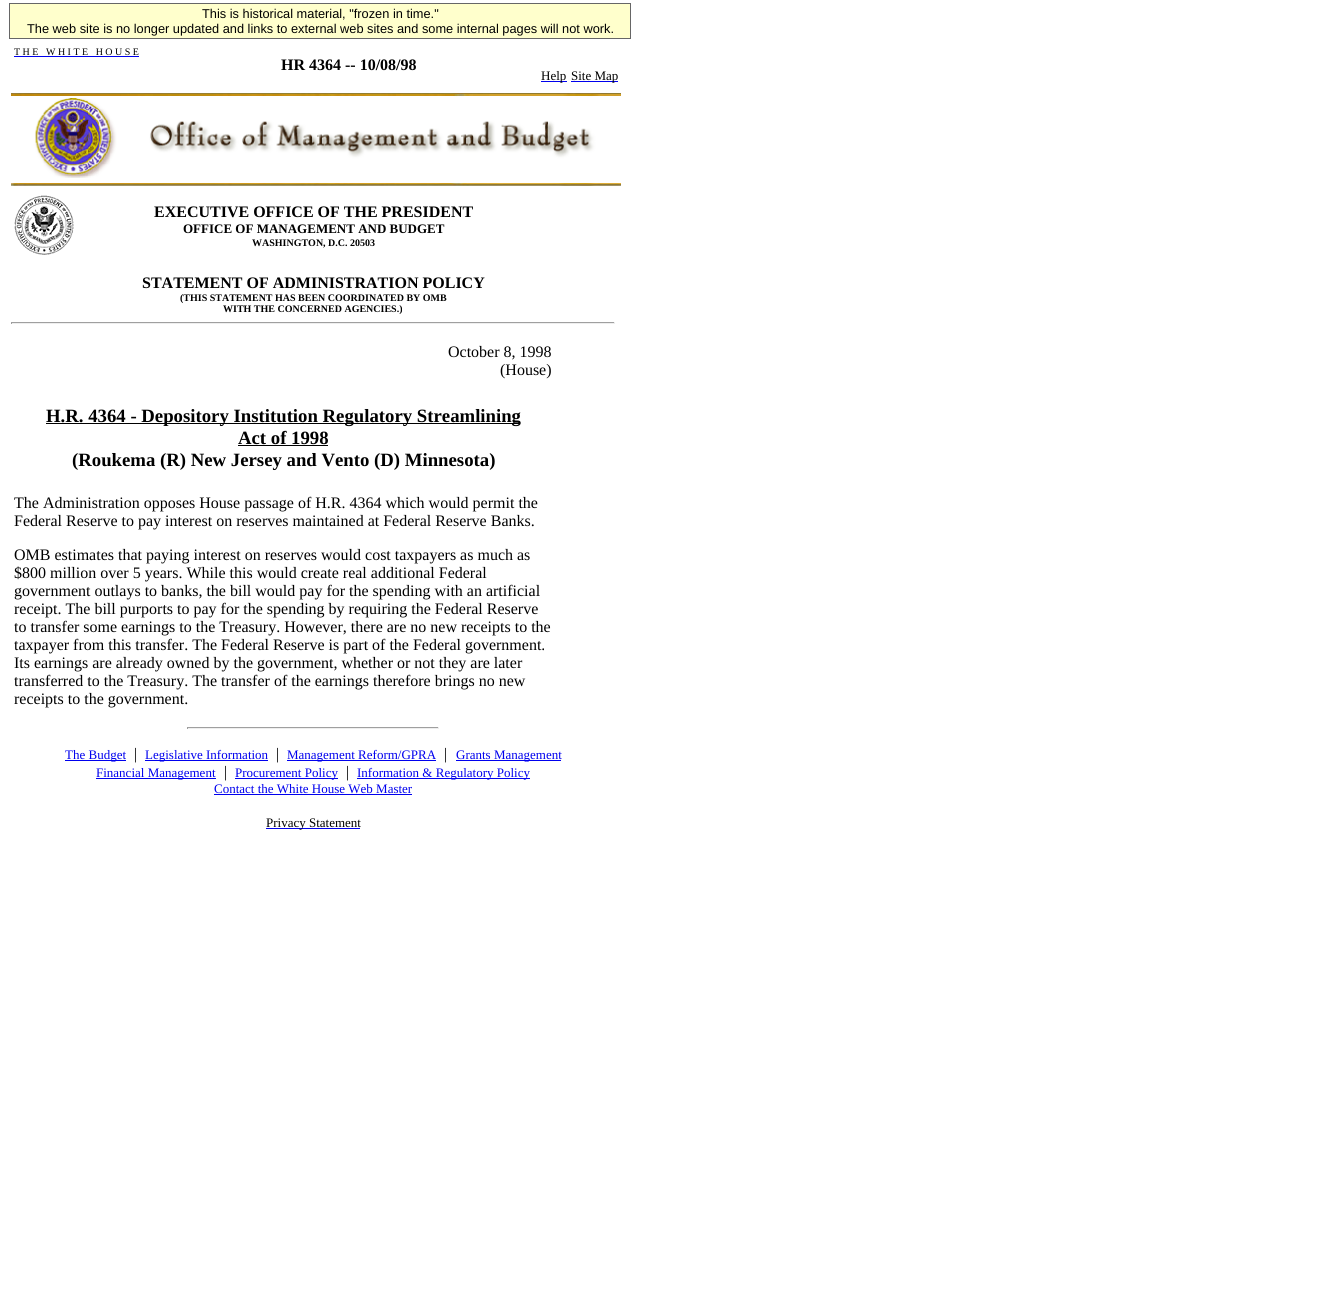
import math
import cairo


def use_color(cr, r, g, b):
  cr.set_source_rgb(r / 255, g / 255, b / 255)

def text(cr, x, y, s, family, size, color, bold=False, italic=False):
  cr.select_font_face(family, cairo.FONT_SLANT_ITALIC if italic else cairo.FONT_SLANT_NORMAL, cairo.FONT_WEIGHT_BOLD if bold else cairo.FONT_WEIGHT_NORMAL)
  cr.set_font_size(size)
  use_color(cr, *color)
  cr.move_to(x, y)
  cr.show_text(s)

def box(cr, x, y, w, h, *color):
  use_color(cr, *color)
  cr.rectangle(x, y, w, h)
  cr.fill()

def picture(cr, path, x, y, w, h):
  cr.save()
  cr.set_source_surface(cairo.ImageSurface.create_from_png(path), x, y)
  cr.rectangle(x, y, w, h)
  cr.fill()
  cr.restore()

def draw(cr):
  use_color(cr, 255, 255, 255)
  cr.paint()
  use_color(cr, 255, 255, 204)
  cr.rectangle(9.5, 3.5, 621, 35)
  cr.fill_preserve()
  use_color(cr, 102, 102, 102)
  cr.set_line_width(1)
  cr.stroke()
  box(cr, 14, 56, 125, 1, 0, 0, 238)
  box(cr, 541, 81, 26, 1, 0, 0, 238)
  box(cr, 571, 81, 47, 1, 0, 0, 238)
  picture(cr, "img_01.png", 11, 93, 610, 85)
  picture(cr, "img_02.png", 11, 183, 610, 3)
  picture(cr, "img_03.png", 14, 195, 60, 60)
  box(cr, 11, 322, 604, 1, 159, 159, 159)
  box(cr, 614, 322, 1, 2, 238, 238, 238)
  box(cr, 11, 323, 604, 1, 238, 238, 238)
  box(cr, 11, 322, 1, 2, 159, 159, 159)
  box(cr, 46, 423, 474, 1, 0, 0, 0)
  box(cr, 238, 445, 90, 1, 0, 0, 0)
  box(cr, 187, 727, 252, 1, 159, 159, 159)
  box(cr, 438, 727, 1, 2, 238, 238, 238)
  box(cr, 187, 728, 252, 1, 238, 238, 238)
  box(cr, 187, 727, 1, 2, 159, 159, 159)
  box(cr, 65, 760, 61, 1, 0, 0, 238)
  box(cr, 145, 760, 123, 1, 0, 0, 238)
  box(cr, 287, 760, 149, 1, 0, 0, 238)
  box(cr, 456, 760, 105, 1, 0, 0, 238)
  box(cr, 96, 778, 120, 1, 0, 0, 238)
  box(cr, 235, 778, 103, 1, 0, 0, 238)
  box(cr, 357, 778, 173, 1, 0, 0, 238)
  box(cr, 214, 794, 198, 1, 0, 0, 238)
  box(cr, 266, 828, 94, 1, 0, 0, 238)
  text(cr, 202, 18, "This is historical material, \"frozen in time.\"", "Liberation Sans", 12.8, (0, 0, 0))
  text(cr, 27, 33, "The web site is no longer updated and links to external web sites and some internal pages will not work.", "Liberation Sans", 12.8, (0, 0, 0))
  text(cr, 14, 55, "T H E   W H I T E   H O U S E", "Liberation Serif", 10, (0, 0, 0))
  text(cr, 281, 70, "HR 4364 -- 10/08/98", "Liberation Serif", 16, (0, 0, 0), bold=True)
  text(cr, 541, 80, "Help", "Liberation Serif", 13, (0, 0, 0))
  text(cr, 571, 80, "Site Map", "Liberation Serif", 13, (0, 0, 0))
  text(cr, 154, 217, "EXECUTIVE OFFICE OF THE PRESIDENT", "Liberation Serif", 16, (0, 0, 0), bold=True)
  text(cr, 183, 233, "OFFICE OF MANAGEMENT AND BUDGET", "Liberation Serif", 13, (0, 0, 0), bold=True)
  text(cr, 252, 246, "WASHINGTON, D.C. 20503", "Liberation Serif", 10, (0, 0, 0), bold=True)
  text(cr, 142, 288, "STATEMENT OF ADMINISTRATION POLICY", "Liberation Serif", 16, (0, 0, 0), bold=True)
  text(cr, 180, 301, "(THIS STATEMENT HAS BEEN COORDINATED BY OMB", "Liberation Serif", 10, (0, 0, 0), bold=True)
  text(cr, 223, 312, "WITH THE CONCERNED AGENCIES.)", "Liberation Serif", 10, (0, 0, 0), bold=True)
  text(cr, 448, 357, "October 8, 1998", "Liberation Serif", 16, (0, 0, 0))
  text(cr, 500, 375, "(House)", "Liberation Serif", 16, (0, 0, 0))
  text(cr, 46, 422, "H.R. 4364 - Depository Institution Regulatory Streamlining", "Liberation Serif", 18.75, (0, 0, 0), bold=True)
  text(cr, 238, 444, "Act of 1998", "Liberation Serif", 18.75, (0, 0, 0), bold=True)
  text(cr, 72, 466, "(Roukema (R) New Jersey and Vento (D) Minnesota)", "Liberation Serif", 18.75, (0, 0, 0), bold=True)
  text(cr, 14, 508, "The Administration opposes House passage of H.R. 4364 which would permit the", "Liberation Serif", 16, (0, 0, 0))
  text(cr, 14, 526, "Federal Reserve to pay interest on reserves maintained at Federal Reserve Banks.", "Liberation Serif", 16, (0, 0, 0))
  text(cr, 14, 560, "OMB estimates that paying interest on reserves would cost taxpayers as much as", "Liberation Serif", 16, (0, 0, 0))
  text(cr, 14, 578, "$800 million over 5 years. While this would create real additional Federal", "Liberation Serif", 16, (0, 0, 0))
  text(cr, 14, 596, "government outlays to banks, the bill would pay for the spending with an artificial", "Liberation Serif", 16, (0, 0, 0))
  text(cr, 14, 614, "receipt. The bill purports to pay for the spending by requiring the Federal Reserve", "Liberation Serif", 16, (0, 0, 0))
  text(cr, 14, 632, "to transfer some earnings to the Treasury. However, there are no new receipts to the", "Liberation Serif", 16, (0, 0, 0))
  text(cr, 14, 650, "taxpayer from this transfer. The Federal Reserve is part of the Federal government.", "Liberation Serif", 16, (0, 0, 0))
  text(cr, 14, 668, "Its earnings are already owned by the government, whether or not they are later", "Liberation Serif", 16, (0, 0, 0))
  text(cr, 14, 686, "transferred to the Treasury. The transfer of the earnings therefore brings no new", "Liberation Serif", 16, (0, 0, 0))
  text(cr, 14, 704, "receipts to the government.", "Liberation Serif", 16, (0, 0, 0))
  text(cr, 65, 759, "The Budget", "Liberation Serif", 13, (0, 0, 238))
  text(cr, 134, 759, "|", "Liberation Serif", 16, (0, 0, 0))
  text(cr, 145, 759, "Legislative Information", "Liberation Serif", 13, (0, 0, 238))
  text(cr, 276, 759, "|", "Liberation Serif", 16, (0, 0, 0))
  text(cr, 287, 759, "Management Reform/GPRA", "Liberation Serif", 13, (0, 0, 238))
  text(cr, 444, 759, "|", "Liberation Serif", 16, (0, 0, 0))
  text(cr, 456, 759, "Grants Management", "Liberation Serif", 13, (0, 0, 238))
  text(cr, 96, 777, "Financial Management", "Liberation Serif", 13, (0, 0, 238))
  text(cr, 224, 777, "|", "Liberation Serif", 16, (0, 0, 0))
  text(cr, 235, 777, "Procurement Policy", "Liberation Serif", 13, (0, 0, 238))
  text(cr, 346, 777, "|", "Liberation Serif", 16, (0, 0, 0))
  text(cr, 357, 777, "Information & Regulatory Policy", "Liberation Serif", 13, (0, 0, 238))
  text(cr, 214, 793, "Contact the White House Web Master", "Liberation Serif", 13, (0, 0, 238))
  text(cr, 266, 827, "Privacy Statement", "Liberation Serif", 13, (0, 0, 0))


surface = cairo.ImageSurface(cairo.FORMAT_RGB24, 1323, 1315)
cr = cairo.Context(surface)
options = cairo.FontOptions()
options.set_hint_metrics(cairo.HINT_METRICS_OFF)
options.set_hint_style(cairo.HINT_STYLE_NONE)
cr.set_font_options(options)
cr.set_miter_limit(4)
draw(cr)
surface.write_to_png("out.png")
